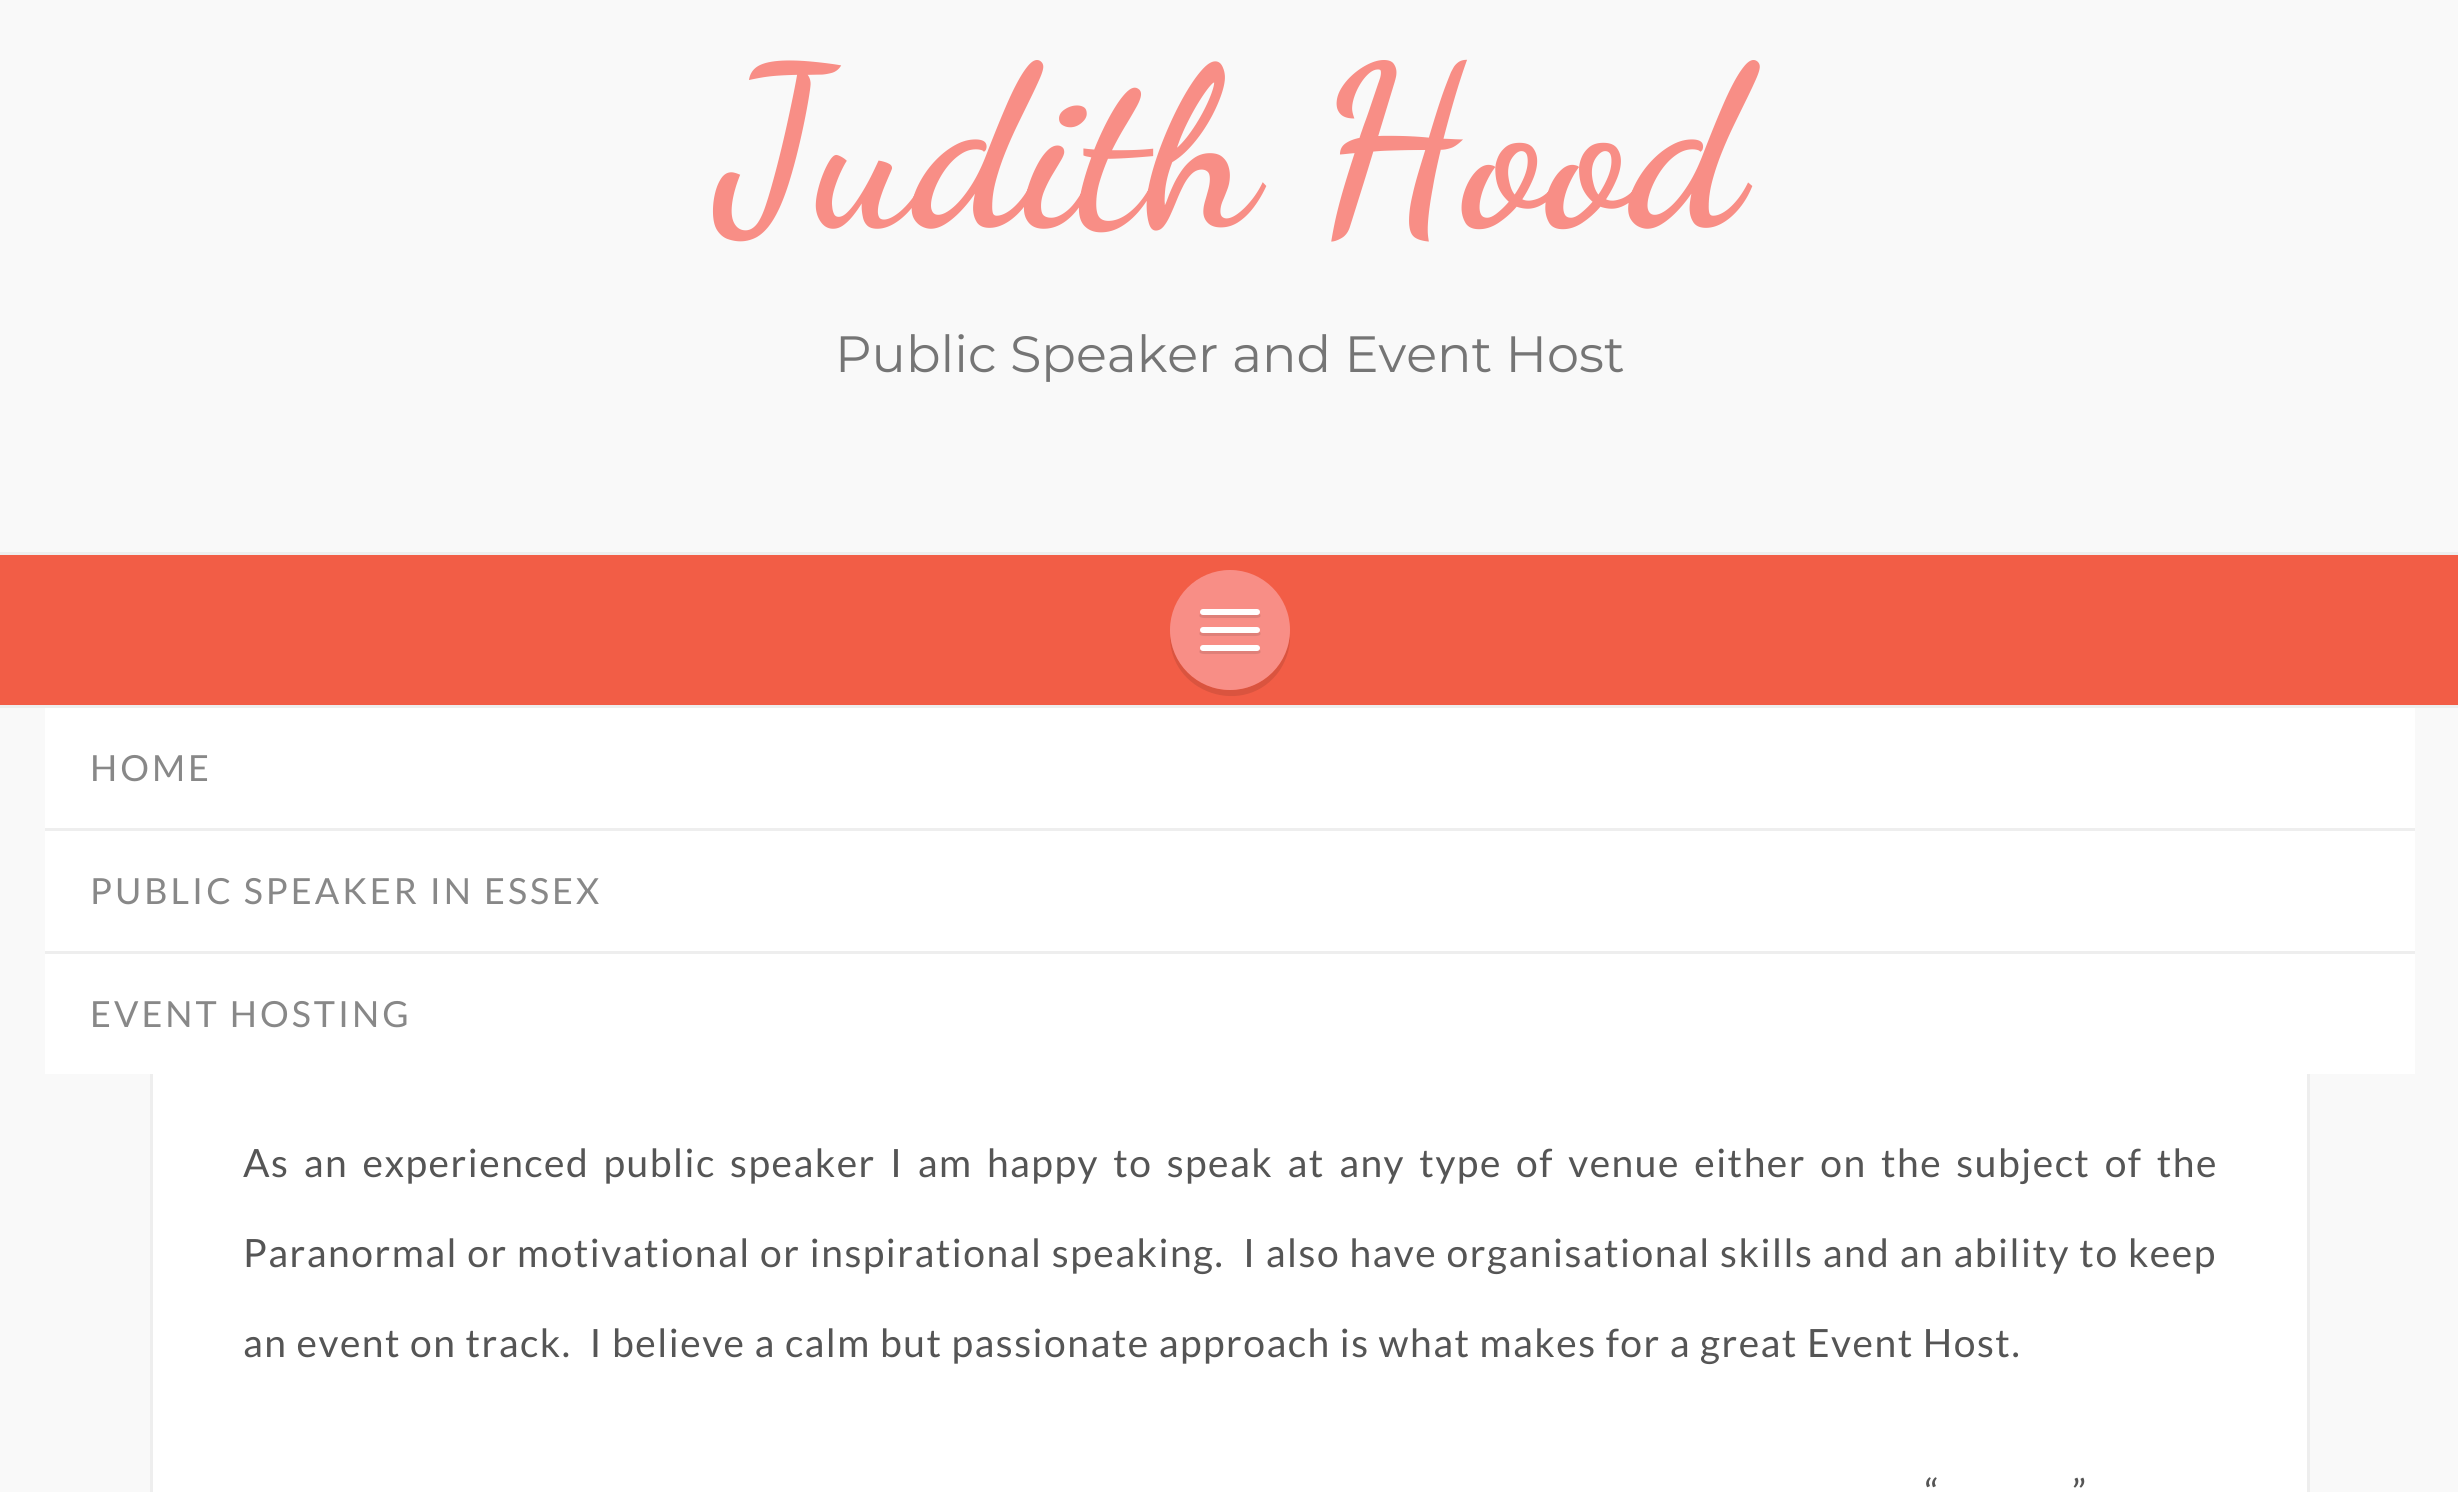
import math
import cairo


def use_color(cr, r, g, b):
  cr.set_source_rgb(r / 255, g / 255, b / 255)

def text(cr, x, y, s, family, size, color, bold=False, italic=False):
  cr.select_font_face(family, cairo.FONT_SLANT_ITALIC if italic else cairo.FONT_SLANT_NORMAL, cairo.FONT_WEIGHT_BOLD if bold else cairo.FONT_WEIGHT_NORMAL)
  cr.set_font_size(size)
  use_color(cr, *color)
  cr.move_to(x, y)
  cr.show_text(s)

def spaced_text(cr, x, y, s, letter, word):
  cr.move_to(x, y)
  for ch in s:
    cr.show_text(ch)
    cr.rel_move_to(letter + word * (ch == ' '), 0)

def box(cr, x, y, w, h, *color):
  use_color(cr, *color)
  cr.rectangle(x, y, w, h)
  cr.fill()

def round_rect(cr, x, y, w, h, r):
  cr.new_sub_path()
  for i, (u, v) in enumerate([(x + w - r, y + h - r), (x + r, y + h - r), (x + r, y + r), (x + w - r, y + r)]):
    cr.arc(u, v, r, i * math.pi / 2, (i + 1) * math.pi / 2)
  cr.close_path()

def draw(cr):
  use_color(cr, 249, 249, 249)
  cr.paint()
  box(cr, 0, 555, 2458, 150, 242, 93, 70)
  box(cr, 0, 552, 2458, 3, 238, 238, 238)
  box(cr, 0, 705, 2458, 3, 238, 238, 238)
  use_color(cr, 218, 84, 63)
  cr.new_path()
  cr.move_to(1170, 633)
  cr.curve_to(1167, 693, 1246, 720, 1280, 670)
  cr.curve_to(1287, 659, 1291, 646, 1290, 633)
  cr.curve_to(1288, 665, 1262, 690, 1230, 690)
  cr.curve_to(1198, 690, 1172, 665, 1170, 633)
  cr.close_path()
  cr.fill()
  use_color(cr, 248, 142, 134)
  cr.arc(1230, 630, 60, 0, 2 * math.pi)
  cr.fill()
  use_color(cr, 223, 128, 121)
  cr.new_path()
  cr.move_to(1200, 614)
  cr.curve_to(1197, 619, 1206, 618, 1212, 618)
  cr.line_to(1248, 618)
  cr.curve_to(1254, 618, 1263, 619, 1260, 614)
  cr.line_to(1257, 615)
  cr.line_to(1203, 615)
  cr.close_path()
  cr.fill()
  use_color(cr, 255, 255, 255)
  round_rect(cr, 1200, 609, 60, 6, 3)
  cr.fill()
  use_color(cr, 223, 128, 121)
  cr.new_path()
  cr.move_to(1200, 632)
  cr.curve_to(1197, 637, 1206, 636, 1212, 636)
  cr.line_to(1248, 636)
  cr.curve_to(1254, 636, 1263, 637, 1260, 632)
  cr.line_to(1257, 633)
  cr.line_to(1203, 633)
  cr.close_path()
  cr.fill()
  use_color(cr, 255, 255, 255)
  round_rect(cr, 1200, 627, 60, 6, 3)
  cr.fill()
  use_color(cr, 223, 128, 121)
  cr.new_path()
  cr.move_to(1200, 650)
  cr.curve_to(1197, 655, 1206, 654, 1212, 654)
  cr.line_to(1248, 654)
  cr.curve_to(1254, 654, 1263, 655, 1260, 650)
  cr.line_to(1257, 651)
  cr.line_to(1203, 651)
  cr.close_path()
  cr.fill()
  use_color(cr, 255, 255, 255)
  round_rect(cr, 1200, 645, 60, 6, 3)
  cr.fill()
  box(cr, 45, 708, 2370, 120, 255, 255, 255)
  box(cr, 153, 1074, 2154, 418, 255, 255, 255)
  cr.rectangle(151.5, 859.5, 2157, 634)
  use_color(cr, 238, 238, 238)
  cr.set_line_width(3)
  cr.stroke()
  box(cr, 45, 831, 2370, 120, 255, 255, 255)
  box(cr, 45, 828, 2370, 3, 238, 238, 238)
  box(cr, 45, 954, 2370, 120, 255, 255, 255)
  box(cr, 45, 951, 2370, 3, 238, 238, 238)
  text(cr, 717, 222, "Judith Hood", "Dancing Script", 225, (248, 142, 134), bold=True)
  text(cr, 835, 372, "Public Speaker and Event Host", "Montserrat", 51, (117, 117, 117))
  cr.select_font_face("Lato")
  cr.set_font_size(36)
  use_color(cr, 136, 136, 136)
  spaced_text(cr, 90, 781, "HOME", 3, 0)
  spaced_text(cr, 90, 904, "PUBLIC SPEAKER IN ESSEX", 3, 0)
  spaced_text(cr, 90, 1027, "EVENT HOSTING", 3, 0)
  cr.set_font_size(39)
  use_color(cr, 85, 85, 85)
  spaced_text(cr, 243, 1177, "As an experienced public speaker I am happy to speak at any type of venue either on the subject of the", 1.5, 5.25)
  spaced_text(cr, 243, 1267, "Paranormal or motivational or inspirational speaking.  I also have organisational skills and an ability to keep", 1.5, 0.3)
  spaced_text(cr, 243, 1357, "an event on track.  I believe a calm but passionate approach is what makes for a great Event Host.", 1.5, 0)
  spaced_text(cr, 1925, 1507, "“", 1.5, 7)
  spaced_text(cr, 2072, 1507, "”", 1.5, 7)


surface = cairo.ImageSurface(cairo.FORMAT_RGB24, 2458, 1492)
cr = cairo.Context(surface)
options = cairo.FontOptions()
options.set_hint_metrics(cairo.HINT_METRICS_OFF)
options.set_hint_style(cairo.HINT_STYLE_NONE)
cr.set_font_options(options)
cr.set_miter_limit(4)
draw(cr)
surface.write_to_png("out.png")
